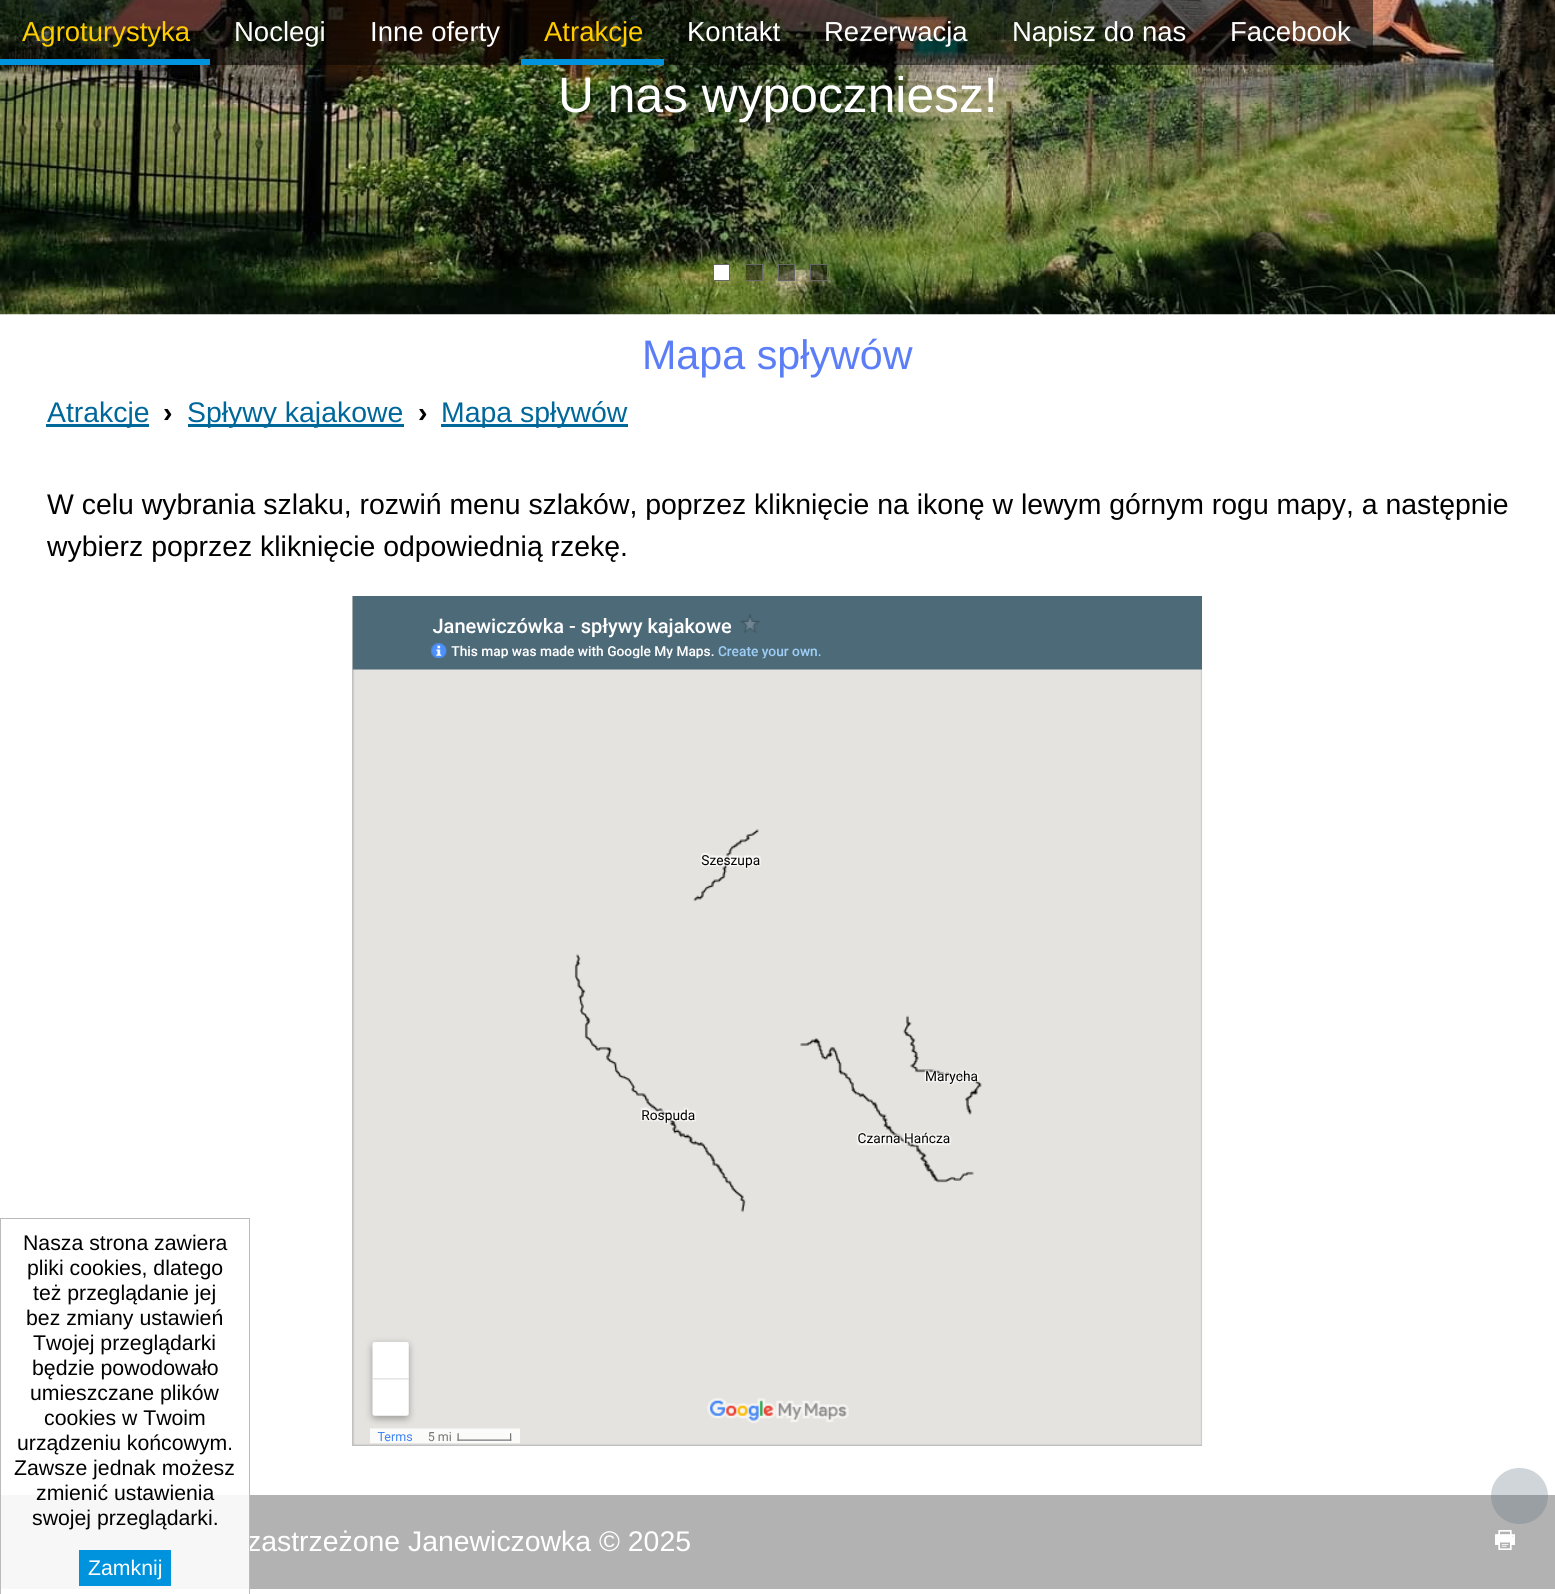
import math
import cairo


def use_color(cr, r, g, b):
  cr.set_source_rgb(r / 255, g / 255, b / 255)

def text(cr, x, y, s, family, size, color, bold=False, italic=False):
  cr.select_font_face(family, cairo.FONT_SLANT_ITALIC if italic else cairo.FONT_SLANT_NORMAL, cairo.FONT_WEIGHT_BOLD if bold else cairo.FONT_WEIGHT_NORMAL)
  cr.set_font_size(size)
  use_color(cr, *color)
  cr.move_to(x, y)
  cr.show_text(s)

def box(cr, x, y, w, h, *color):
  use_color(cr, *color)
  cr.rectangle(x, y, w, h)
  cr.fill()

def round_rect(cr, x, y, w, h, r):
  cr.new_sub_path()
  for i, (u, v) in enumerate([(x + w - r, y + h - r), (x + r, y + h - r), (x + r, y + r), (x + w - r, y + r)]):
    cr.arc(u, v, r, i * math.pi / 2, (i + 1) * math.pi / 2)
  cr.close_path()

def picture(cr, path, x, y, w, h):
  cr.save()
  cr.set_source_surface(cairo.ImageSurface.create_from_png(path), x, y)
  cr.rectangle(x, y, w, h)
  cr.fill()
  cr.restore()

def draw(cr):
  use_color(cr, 255, 255, 255)
  cr.paint()
  picture(cr, "img_01.png", 0, 0, 1555, 315)
  cr.set_source_rgba(0, 0, 0, 0.5)
  cr.rectangle(0, 0, 1373, 65)
  cr.fill()
  box(cr, 0, 59, 210, 6, 0, 147, 221)
  box(cr, 521, 59, 143, 6, 0, 147, 221)
  use_color(cr, 255, 255, 255)
  cr.rectangle(713.5, 264.5, 16, 16)
  cr.fill_preserve()
  use_color(cr, 102, 102, 102)
  cr.set_line_width(1)
  cr.stroke()
  cr.set_source_rgba(0, 0, 0, 0.4)
  cr.rectangle(745.5, 264.5, 17, 16)
  cr.fill_preserve()
  use_color(cr, 102, 102, 102)
  cr.stroke()
  cr.set_source_rgba(0, 0, 0, 0.4)
  cr.rectangle(778.5, 264.5, 16, 16)
  cr.fill_preserve()
  use_color(cr, 102, 102, 102)
  cr.stroke()
  cr.set_source_rgba(0, 0, 0, 0.4)
  cr.rectangle(810.5, 264.5, 17, 16)
  cr.fill_preserve()
  use_color(cr, 102, 102, 102)
  cr.stroke()
  box(cr, 46, 424, 103, 3, 0, 103, 154)
  box(cr, 188, 424, 216, 3, 0, 103, 154)
  box(cr, 441, 424, 187, 3, 0, 103, 154)
  picture(cr, "img_02.png", 352, 596, 851, 850)
  box(cr, 1, 1495, 1554, 94, 178, 178, 178)
  picture(cr, "img_03.png", 1495, 1530, 20, 20)
  cr.set_source_rgba(0.376, 0.451, 0.502, 0.3)
  round_rect(cr, 1491, 1468, 57, 56, 28)
  cr.fill()
  text(cr, 22, 41, "Agroturystyka", "Liberation Sans", 27.5, (255, 204, 0))
  text(cr, 234, 41, "Noclegi", "Liberation Sans", 27.5, (255, 255, 255))
  text(cr, 370, 41, "Inne oferty", "Liberation Sans", 27.5, (255, 255, 255))
  text(cr, 544, 41, "Atrakcje", "Liberation Sans", 27.5, (255, 204, 0))
  text(cr, 687, 41, "Kontakt", "Liberation Sans", 27.5, (255, 255, 255))
  text(cr, 824, 41, "Rezerwacja", "Liberation Sans", 27.5, (255, 255, 255))
  text(cr, 1012, 41, "Napisz do nas", "Liberation Sans", 27.5, (255, 255, 255))
  text(cr, 1230, 41, "Facebook", "Liberation Sans", 27.5, (255, 255, 255))
  text(cr, 558, 112, "U nas wypoczniesz!", "Liberation Sans", 49.75, (255, 255, 255))
  text(cr, 782, 277, "3", "Liberation Sans", 14, (86, 90, 60))
  text(cr, 642, 369, "Mapa spływów", "Liberation Sans", 41.25, (91, 126, 247))
  text(cr, 47, 422, "Atrakcje", "Liberation Sans", 28.4, (0, 103, 154))
  text(cr, 163, 422, "›", "Liberation Sans", 28.4, (0, 0, 0), bold=True)
  text(cr, 187, 422, "Spływy kajakowe", "Liberation Sans", 28.4, (0, 103, 154))
  text(cr, 418, 422, "›", "Liberation Sans", 28.4, (0, 0, 0), bold=True)
  text(cr, 441, 422, "Mapa spływów", "Liberation Sans", 28.4, (0, 103, 154))
  text(cr, 47, 514, "W celu wybrania szlaku, rozwiń menu szlaków, poprzez kliknięcie na ikonę w lewym górnym rogu mapy, a następnie", "Liberation Sans", 28.4, (0, 0, 0))
  text(cr, 47, 556, "wybierz poprzez kliknięcie odpowiednią rzekę.", "Liberation Sans", 28.4, (0, 0, 0))
  text(cr, 247, 1551, "zastrzeżone Janewiczowka © 2025", "Liberation Sans", 28.4, (255, 255, 255))
  cr.set_source_rgba(1, 1, 1, 0.9)
  cr.rectangle(1, 1495, 248, 94)
  cr.fill()
  cr.rectangle(0.5, 1218.5, 249, 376)
  use_color(cr, 187, 187, 187)
  cr.stroke()
  text(cr, 23, 1250, "Nasza strona zawiera", "Liberation Sans", 21.25, (0, 0, 0))
  text(cr, 27, 1275, "pliki cookies, dlatego", "Liberation Sans", 21.25, (0, 0, 0))
  text(cr, 33, 1300, "też przeglądanie jej", "Liberation Sans", 21.25, (0, 0, 0))
  text(cr, 26, 1325, "bez zmiany ustawień", "Liberation Sans", 21.25, (0, 0, 0))
  text(cr, 33, 1350, "Twojej przeglądarki", "Liberation Sans", 21.25, (0, 0, 0))
  text(cr, 32, 1375, "będzie powodowało", "Liberation Sans", 21.25, (0, 0, 0))
  text(cr, 30, 1400, "umieszczane plików", "Liberation Sans", 21.25, (0, 0, 0))
  text(cr, 44, 1425, "cookies w Twoim", "Liberation Sans", 21.25, (0, 0, 0))
  text(cr, 17, 1450, "urządzeniu końcowym.", "Liberation Sans", 21.25, (0, 0, 0))
  text(cr, 14, 1475, "Zawsze jednak możesz", "Liberation Sans", 21.25, (0, 0, 0))
  text(cr, 36, 1500, "zmienić ustawienia", "Liberation Sans", 21.25, (0, 0, 0))
  text(cr, 32, 1525, "swojej przeglądarki.", "Liberation Sans", 21.25, (0, 0, 0))
  box(cr, 79, 1550, 92, 36, 0, 147, 221)
  text(cr, 88, 1575, "Zamknij", "Liberation Sans", 21.25, (255, 255, 255))


surface = cairo.ImageSurface(cairo.FORMAT_RGB24, 1555, 1594)
cr = cairo.Context(surface)
options = cairo.FontOptions()
options.set_hint_metrics(cairo.HINT_METRICS_OFF)
options.set_hint_style(cairo.HINT_STYLE_NONE)
cr.set_font_options(options)
cr.set_miter_limit(4)
draw(cr)
surface.write_to_png("out.png")
